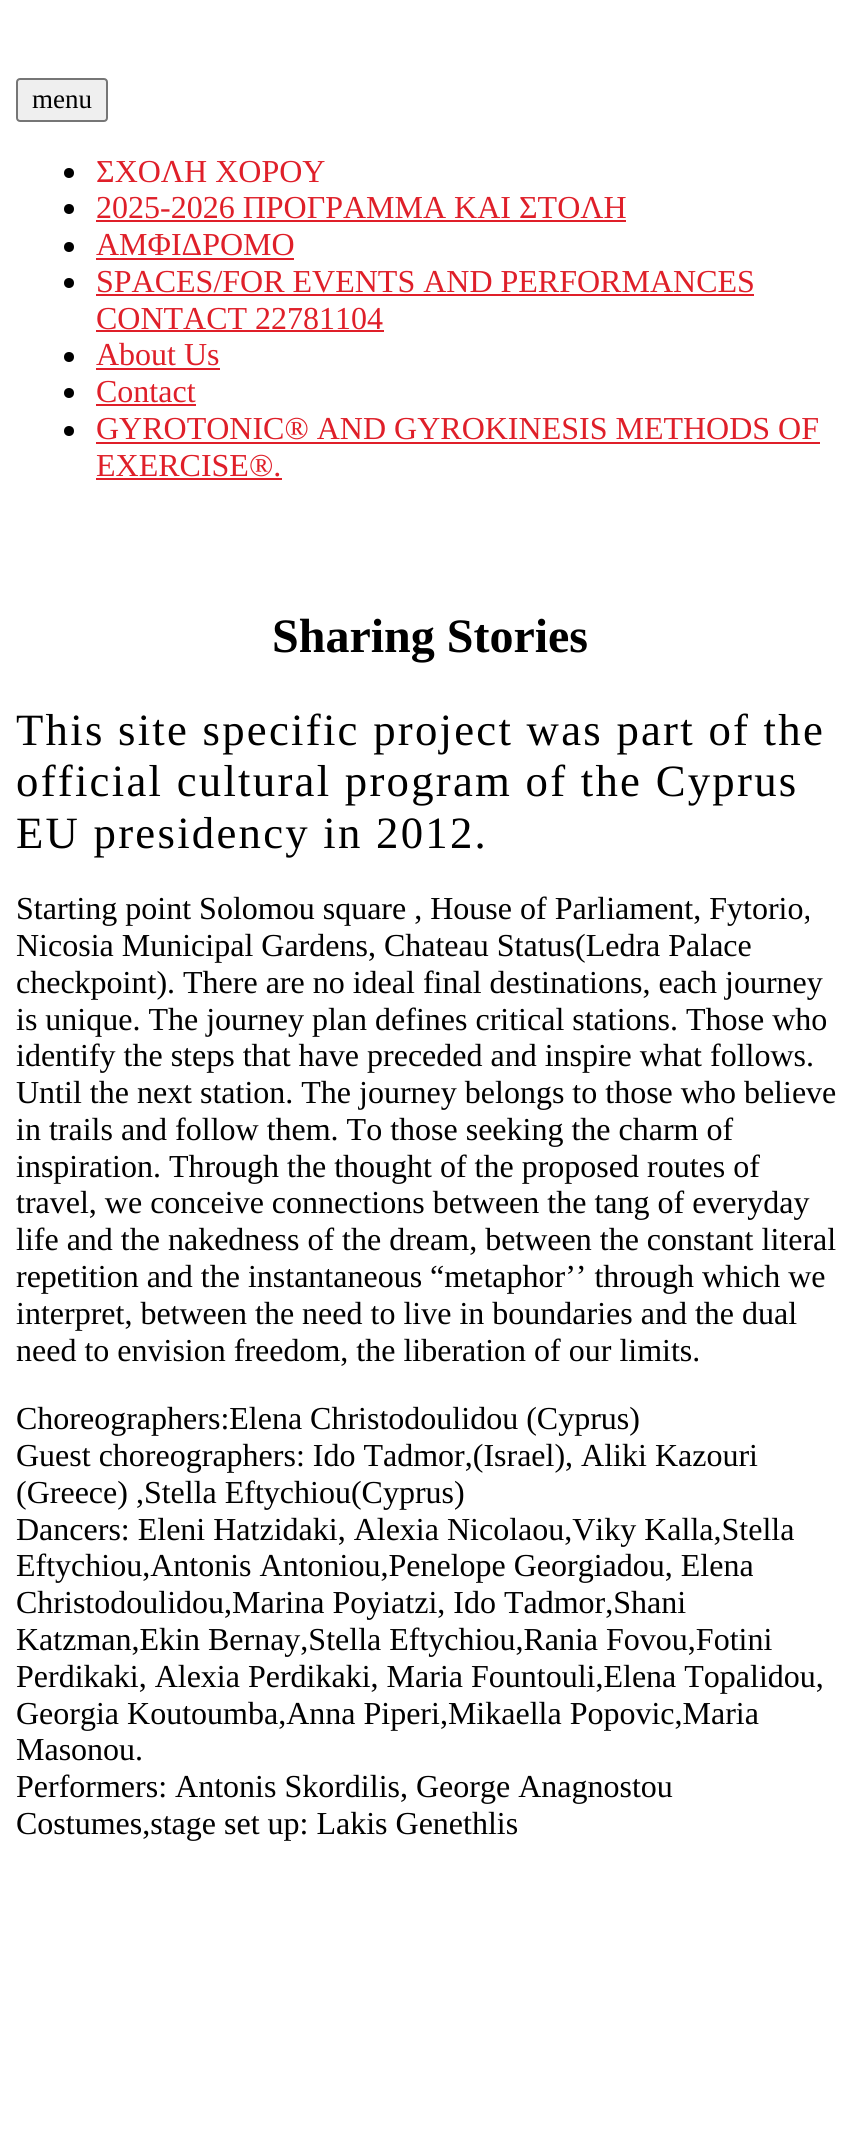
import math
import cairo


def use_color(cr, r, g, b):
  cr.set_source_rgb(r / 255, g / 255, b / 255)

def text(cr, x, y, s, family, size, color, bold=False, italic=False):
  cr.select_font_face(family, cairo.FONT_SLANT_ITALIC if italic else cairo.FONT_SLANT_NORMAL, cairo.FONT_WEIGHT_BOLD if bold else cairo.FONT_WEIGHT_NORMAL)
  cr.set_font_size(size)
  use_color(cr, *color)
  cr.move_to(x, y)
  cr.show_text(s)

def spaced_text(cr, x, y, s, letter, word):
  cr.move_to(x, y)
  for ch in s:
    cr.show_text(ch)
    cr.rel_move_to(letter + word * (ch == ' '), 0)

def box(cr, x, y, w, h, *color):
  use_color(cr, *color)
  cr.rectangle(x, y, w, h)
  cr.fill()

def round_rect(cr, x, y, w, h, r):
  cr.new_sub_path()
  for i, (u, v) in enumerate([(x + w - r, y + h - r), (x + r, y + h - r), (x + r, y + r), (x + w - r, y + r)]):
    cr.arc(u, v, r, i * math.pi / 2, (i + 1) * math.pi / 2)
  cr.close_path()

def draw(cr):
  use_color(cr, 255, 255, 255)
  cr.paint()
  use_color(cr, 239, 239, 239)
  round_rect(cr, 17, 79, 90, 42, 3)
  cr.fill_preserve()
  use_color(cr, 118, 118, 118)
  cr.stroke()
  use_color(cr, 0, 0, 0)
  cr.arc(69, 173, 5, 0, 2 * math.pi)
  cr.fill()
  cr.arc(69, 209, 5, 0, 2 * math.pi)
  cr.fill()
  box(cr, 96, 220, 530, 2, 223, 31, 41)
  use_color(cr, 0, 0, 0)
  cr.arc(69, 247, 5, 0, 2 * math.pi)
  cr.fill()
  box(cr, 96, 258, 198, 2, 223, 31, 41)
  use_color(cr, 0, 0, 0)
  cr.arc(69, 283, 5, 0, 2 * math.pi)
  cr.fill()
  box(cr, 96, 294, 658, 2, 223, 31, 41)
  box(cr, 96, 330, 288, 2, 223, 31, 41)
  use_color(cr, 0, 0, 0)
  cr.arc(69, 357, 5, 0, 2 * math.pi)
  cr.fill()
  box(cr, 96, 368, 124, 2, 223, 31, 41)
  use_color(cr, 0, 0, 0)
  cr.arc(69, 393, 5, 0, 2 * math.pi)
  cr.fill()
  box(cr, 96, 404, 100, 2, 223, 31, 41)
  use_color(cr, 0, 0, 0)
  cr.arc(69, 431, 5, 0, 2 * math.pi)
  cr.fill()
  box(cr, 96, 442, 724, 2, 223, 31, 41)
  box(cr, 96, 478, 186, 2, 223, 31, 41)
  text(cr, 32, 108, "menu", "Liberation Serif", 27, (0, 0, 0))
  text(cr, 96, 182, "ΣΧΟΛΗ ΧΟΡΟΥ", "Liberation Serif", 32, (223, 31, 41))
  text(cr, 96, 218, "2025-2026 ΠΡΟΓΡΑΜΜΑ ΚΑΙ ΣΤΟΛΗ", "Liberation Serif", 32, (223, 31, 41))
  text(cr, 96, 255, "ΑΜΦΙΔΡΟΜΟ", "Liberation Serif", 32, (223, 31, 41))
  text(cr, 96, 292, "SPACES/FOR EVENTS AND PERFORMANCES", "Liberation Serif", 32, (223, 31, 41))
  text(cr, 96, 329, "CONTACT 22781104", "Liberation Serif", 32, (223, 31, 41))
  text(cr, 96, 365, "About Us", "Liberation Serif", 32, (223, 31, 41))
  text(cr, 96, 402, "Contact", "Liberation Serif", 32, (223, 31, 41))
  text(cr, 96, 439, "GYROTONIC® AND GYROKINESIS METHODS OF", "Liberation Serif", 32, (223, 31, 41))
  text(cr, 96, 476, "EXERCISE®.", "Liberation Serif", 32, (223, 31, 41))
  text(cr, 272, 652, "Sharing Stories", "Liberation Serif", 48, (0, 0, 0), bold=True)
  cr.select_font_face("Liberation Serif")
  cr.set_font_size(44.75)
  spaced_text(cr, 16, 745, "This site specific project was part of the", 2.25, 0)
  spaced_text(cr, 16, 796, "official cultural program of the Cyprus", 2.25, 0)
  spaced_text(cr, 16, 848, "EU presidency in 2012.", 2.25, 0)
  text(cr, 16, 919, "Starting point Solomou square , House of Parliament, Fytorio,", "Liberation Serif", 32, (0, 0, 0))
  text(cr, 16, 956, "Nicosia Municipal Gardens, Chateau Status(Ledra Palace", "Liberation Serif", 32, (0, 0, 0))
  text(cr, 16, 993, "checkpoint). There are no ideal final destinations, each journey", "Liberation Serif", 32, (0, 0, 0))
  text(cr, 16, 1030, "is unique. The journey plan defines critical stations. Those who", "Liberation Serif", 32, (0, 0, 0))
  text(cr, 16, 1066, "identify the steps that have preceded and inspire what follows.", "Liberation Serif", 32, (0, 0, 0))
  text(cr, 16, 1103, "Until the next station. The journey belongs to those who believe", "Liberation Serif", 32, (0, 0, 0))
  text(cr, 16, 1140, "in trails and follow them. To those seeking the charm of", "Liberation Serif", 32, (0, 0, 0))
  text(cr, 16, 1177, "inspiration. Through the thought of the proposed routes of", "Liberation Serif", 32, (0, 0, 0))
  text(cr, 16, 1213, "travel, we conceive connections between the tang of everyday", "Liberation Serif", 32, (0, 0, 0))
  text(cr, 16, 1250, "life and the nakedness of the dream, between the constant literal", "Liberation Serif", 32, (0, 0, 0))
  text(cr, 16, 1287, "repetition and the instantaneous “metaphor’’ through which we", "Liberation Serif", 32, (0, 0, 0))
  text(cr, 16, 1324, "interpret, between the need to live in boundaries and the dual", "Liberation Serif", 32, (0, 0, 0))
  text(cr, 16, 1361, "need to envision freedom, the liberation of our limits.", "Liberation Serif", 32, (0, 0, 0))
  text(cr, 16, 1429, "Choreographers:Elena Christodoulidou (Cyprus)", "Liberation Serif", 32, (0, 0, 0))
  text(cr, 16, 1466, "Guest choreographers: Ido Tadmor,(Israel), Aliki Kazouri", "Liberation Serif", 32, (0, 0, 0))
  text(cr, 16, 1503, "(Greece) ,Stella Eftychiou(Cyprus)", "Liberation Serif", 32, (0, 0, 0))
  text(cr, 16, 1540, "Dancers: Eleni Hatzidaki, Alexia Nicolaou,Viky Kalla,Stella", "Liberation Serif", 32, (0, 0, 0))
  text(cr, 16, 1576, "Eftychiou,Antonis Antoniou,Penelope Georgiadou, Elena", "Liberation Serif", 32, (0, 0, 0))
  text(cr, 16, 1613, "Christodoulidou,Marina Poyiatzi, Ido Tadmor,Shani", "Liberation Serif", 32, (0, 0, 0))
  text(cr, 16, 1650, "Katzman,Ekin Bernay,Stella Eftychiou,Rania Fovou,Fotini", "Liberation Serif", 32, (0, 0, 0))
  text(cr, 16, 1687, "Perdikaki, Alexia Perdikaki, Maria Fountouli,Elena Topalidou,", "Liberation Serif", 32, (0, 0, 0))
  text(cr, 16, 1724, "Georgia Koutoumba,Anna Piperi,Mikaella Popovic,Maria", "Liberation Serif", 32, (0, 0, 0))
  text(cr, 16, 1760, "Masonou.", "Liberation Serif", 32, (0, 0, 0))
  text(cr, 16, 1797, "Performers: Antonis Skordilis, George Anagnostou", "Liberation Serif", 32, (0, 0, 0))
  text(cr, 16, 1834, "Costumes,stage set up: Lakis Genethlis", "Liberation Serif", 32, (0, 0, 0))


surface = cairo.ImageSurface(cairo.FORMAT_RGB24, 859, 2139)
cr = cairo.Context(surface)
options = cairo.FontOptions()
options.set_hint_metrics(cairo.HINT_METRICS_OFF)
options.set_hint_style(cairo.HINT_STYLE_NONE)
cr.set_font_options(options)
cr.set_miter_limit(4)
draw(cr)
surface.write_to_png("out.png")
